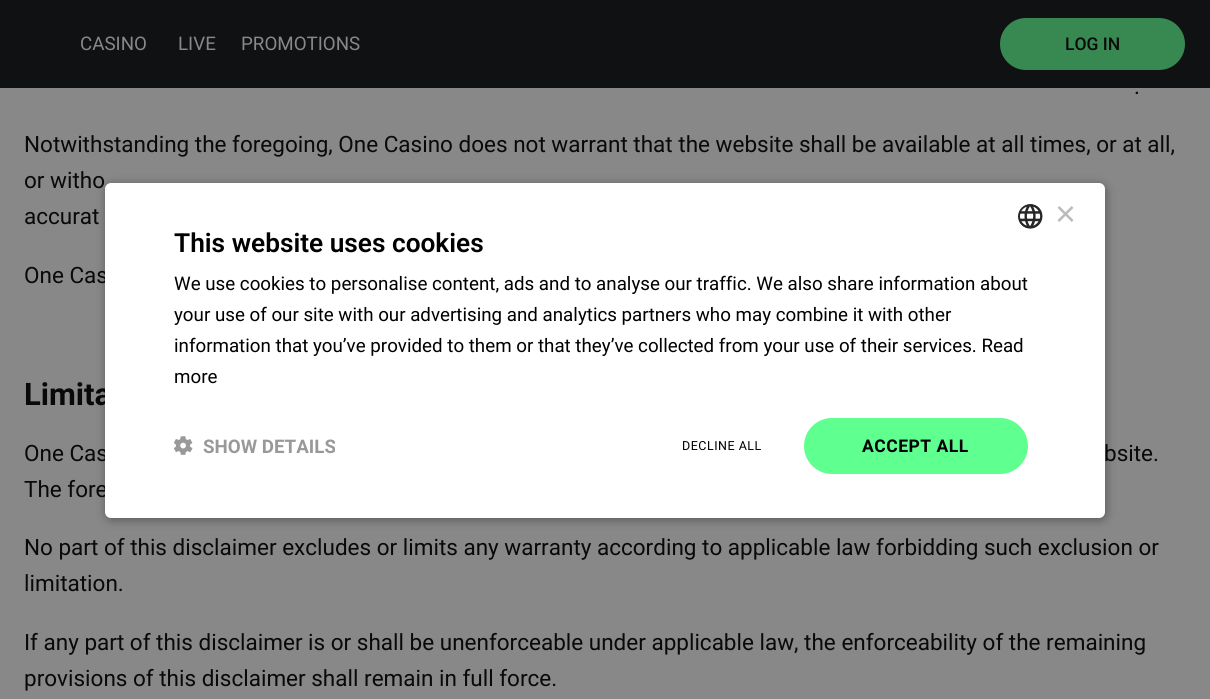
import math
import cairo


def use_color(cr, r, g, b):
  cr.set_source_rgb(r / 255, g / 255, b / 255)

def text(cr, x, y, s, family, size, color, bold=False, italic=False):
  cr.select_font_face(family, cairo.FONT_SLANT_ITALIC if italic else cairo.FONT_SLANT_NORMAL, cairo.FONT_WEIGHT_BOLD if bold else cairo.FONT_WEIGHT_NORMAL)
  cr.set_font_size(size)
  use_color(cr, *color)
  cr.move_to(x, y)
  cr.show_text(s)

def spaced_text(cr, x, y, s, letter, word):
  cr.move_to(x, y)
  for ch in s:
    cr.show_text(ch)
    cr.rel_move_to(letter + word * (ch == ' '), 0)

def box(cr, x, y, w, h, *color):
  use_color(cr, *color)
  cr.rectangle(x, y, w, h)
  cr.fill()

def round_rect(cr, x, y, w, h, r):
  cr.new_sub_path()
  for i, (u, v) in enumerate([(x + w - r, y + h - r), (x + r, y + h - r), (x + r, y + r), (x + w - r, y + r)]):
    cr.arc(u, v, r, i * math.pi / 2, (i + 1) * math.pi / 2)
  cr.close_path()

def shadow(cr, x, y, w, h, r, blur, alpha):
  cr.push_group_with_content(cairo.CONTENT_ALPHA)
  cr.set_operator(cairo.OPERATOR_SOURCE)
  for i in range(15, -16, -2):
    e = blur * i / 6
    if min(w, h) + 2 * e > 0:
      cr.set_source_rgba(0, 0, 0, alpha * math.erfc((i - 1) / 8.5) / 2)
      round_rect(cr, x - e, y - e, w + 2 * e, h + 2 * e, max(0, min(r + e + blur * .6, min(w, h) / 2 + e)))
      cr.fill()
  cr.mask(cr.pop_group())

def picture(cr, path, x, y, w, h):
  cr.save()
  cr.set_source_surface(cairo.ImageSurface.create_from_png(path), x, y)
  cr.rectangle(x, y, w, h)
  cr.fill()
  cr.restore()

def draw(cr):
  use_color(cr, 136, 136, 136)
  cr.paint()
  box(cr, 0, 0, 1210, 88, 16, 17, 18)
  use_color(cr, 56, 136, 81)
  round_rect(cr, 1000, 18, 185, 52, 26)
  cr.fill()
  use_color(cr, 0, 0, 0)
  shadow(cr, 106, 185, 1000, 335, 6, 5, 0.35)
  text(cr, 80, 50, "CASINO", "Roboto", 18.75, (136, 136, 136))
  text(cr, 178, 50, "LIVE", "Roboto", 18.75, (136, 136, 136))
  text(cr, 241, 50, "PROMOTIONS", "Roboto", 18.75, (136, 136, 136))
  text(cr, 1065, 50, "LOG IN", "Roboto Medium", 17.5, (9, 9, 9))
  text(cr, 1134, 94, ".", "Roboto", 22.5, (9, 9, 9))
  text(cr, 24, 152, "Notwithstanding the foregoing, One Casino does not warrant that the website shall be available at all times, or at all,", "Roboto", 22.5, (9, 9, 9))
  text(cr, 24, 188, "or witho", "Roboto", 22.5, (9, 9, 9))
  text(cr, 24, 224, "accurat", "Roboto", 22.5, (9, 9, 9))
  text(cr, 24, 283, "One Cas", "Roboto", 22.5, (9, 9, 9))
  text(cr, 24, 405, "Limita", "Roboto", 31, (9, 9, 9), bold=True)
  text(cr, 24, 461, "One Cas", "Roboto", 22.5, (9, 9, 9))
  text(cr, 1104, 461, "bsite.", "Roboto", 22.5, (9, 9, 9))
  text(cr, 24, 497, "The fore", "Roboto", 22.5, (9, 9, 9))
  text(cr, 24, 555, "No part of this disclaimer excludes or limits any warranty according to applicable law forbidding such exclusion or", "Roboto", 22.5, (9, 9, 9))
  text(cr, 24, 591, "limitation.", "Roboto", 22.5, (9, 9, 9))
  text(cr, 24, 650, "If any part of this disclaimer is or shall be unenforceable under applicable law, the enforceability of the remaining", "Roboto", 22.5, (9, 9, 9))
  text(cr, 24, 686, "provisions of this disclaimer shall remain in full force.", "Roboto", 22.5, (9, 9, 9))
  use_color(cr, 255, 255, 255)
  round_rect(cr, 105, 183, 1000, 335, 6)
  cr.fill()
  picture(cr, "img_01.png", 1018, 204, 25, 25)
  text(cr, 1055, 226, "×", "Liberation Sans", 36, (187, 187, 187))
  text(cr, 174, 252, "This website uses cookies", "Roboto SemiBold", 26.25, (0, 0, 0))
  text(cr, 174, 290, "We use cookies to personalise content, ads and to analyse our traffic. We also share information about", "Roboto", 18.75, (0, 0, 0))
  text(cr, 174, 321, "your use of our site with our advertising and analytics partners who may combine it with other", "Roboto", 18.75, (0, 0, 0))
  text(cr, 174, 352, "information that you’ve provided to them or that they’ve collected from your use of their services. Read", "Roboto", 18.75, (0, 0, 0))
  text(cr, 174, 383, "more", "Roboto", 18.75, (0, 0, 0))
  picture(cr, "img_02.png", 174, 436, 19, 19)
  text(cr, 203, 453, "SHOW DETAILS", "Roboto", 18.75, (154, 152, 152), bold=True)
  cr.select_font_face("Roboto")
  cr.set_font_size(12.5)
  use_color(cr, 0, 0, 0)
  spaced_text(cr, 682, 450, "DECLINE ALL", 0.5, 0)
  use_color(cr, 95, 255, 144)
  round_rect(cr, 804, 418, 224, 56, 28)
  cr.fill()
  cr.select_font_face("Roboto", cairo.FONT_SLANT_NORMAL, cairo.FONT_WEIGHT_BOLD)
  cr.set_font_size(17.5)
  use_color(cr, 0, 0, 0)
  spaced_text(cr, 862, 452, "ACCEPT ALL", 0.5, 0)


surface = cairo.ImageSurface(cairo.FORMAT_RGB24, 1210, 699)
cr = cairo.Context(surface)
options = cairo.FontOptions()
options.set_hint_metrics(cairo.HINT_METRICS_OFF)
options.set_hint_style(cairo.HINT_STYLE_NONE)
cr.set_font_options(options)
cr.set_miter_limit(4)
draw(cr)
surface.write_to_png("out.png")
